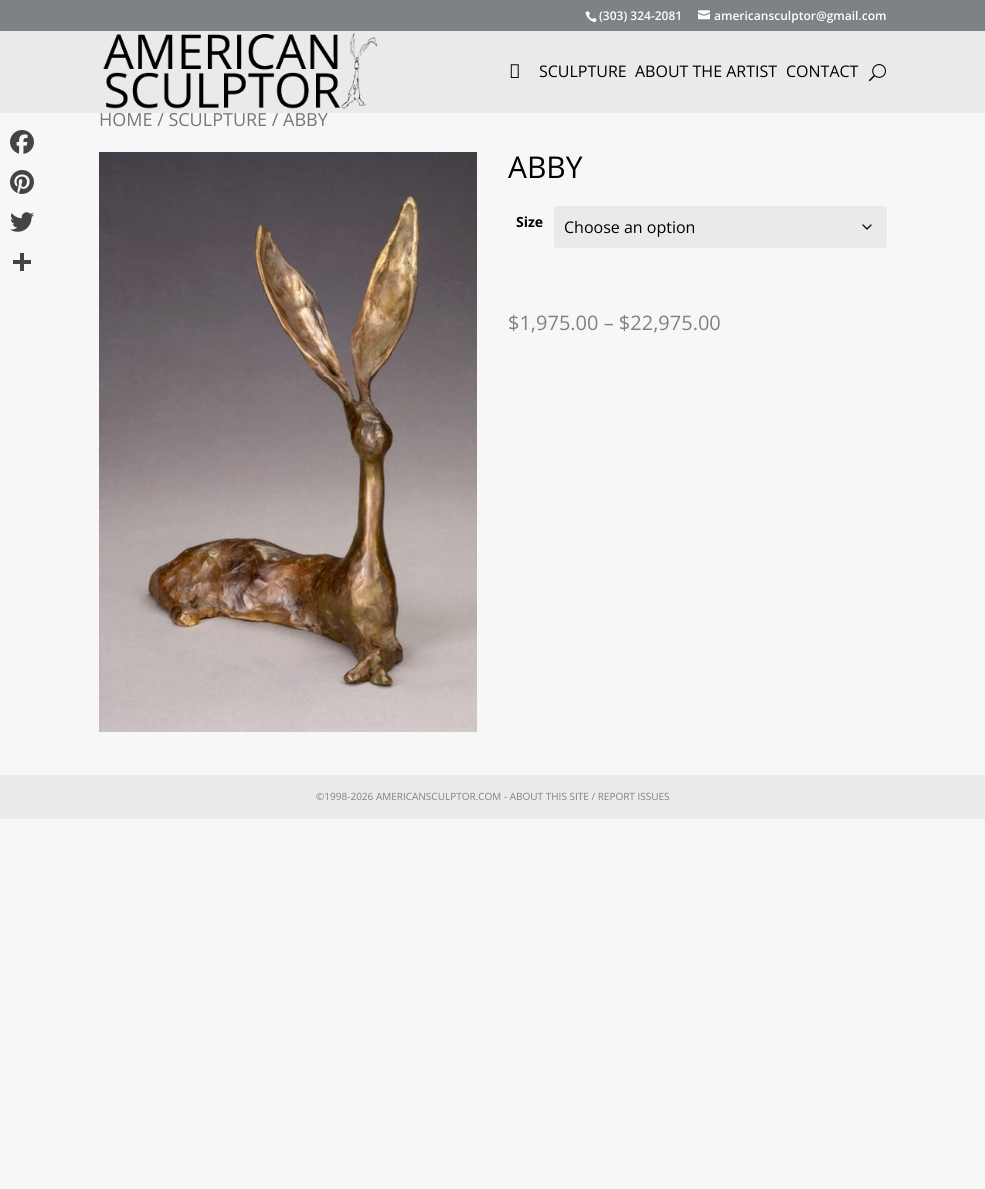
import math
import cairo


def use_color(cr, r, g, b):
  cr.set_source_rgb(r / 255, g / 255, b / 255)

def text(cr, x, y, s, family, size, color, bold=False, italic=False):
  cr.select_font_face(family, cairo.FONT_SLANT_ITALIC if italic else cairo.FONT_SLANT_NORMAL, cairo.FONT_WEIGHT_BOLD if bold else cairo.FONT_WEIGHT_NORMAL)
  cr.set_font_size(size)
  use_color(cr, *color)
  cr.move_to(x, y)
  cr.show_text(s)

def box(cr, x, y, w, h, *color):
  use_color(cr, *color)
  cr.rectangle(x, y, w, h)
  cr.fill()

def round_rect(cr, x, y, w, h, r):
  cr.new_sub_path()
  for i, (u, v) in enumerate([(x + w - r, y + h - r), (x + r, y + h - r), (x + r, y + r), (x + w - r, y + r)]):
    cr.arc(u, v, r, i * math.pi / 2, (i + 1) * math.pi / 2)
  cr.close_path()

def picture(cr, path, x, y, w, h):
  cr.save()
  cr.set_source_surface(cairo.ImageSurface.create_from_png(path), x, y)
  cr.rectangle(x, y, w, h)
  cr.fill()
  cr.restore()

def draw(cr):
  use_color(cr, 247, 247, 247)
  cr.paint()
  picture(cr, "img_01.png", 10, 130, 24, 24)
  picture(cr, "img_02.png", 10, 170, 24, 24)
  picture(cr, "img_03.png", 10, 212, 24, 20)
  box(cr, 20, 253, 4, 18, 68, 68, 68)
  box(cr, 13, 260, 18, 4, 68, 68, 68)
  box(cr, 0, 0, 985, 31, 125, 130, 134)
  picture(cr, "img_04.png", 585, 11, 12, 12)
  picture(cr, "img_05.png", 698, 10, 12, 10)
  picture(cr, "img_09.png", 99, 152, 378, 580)
  use_color(cr, 234, 234, 234)
  round_rect(cr, 554, 206, 333, 42, 2)
  cr.fill()
  cr.new_path()
  cr.move_to(863, 225)
  cr.line_to(867, 229)
  cr.line_to(871, 225)
  use_color(cr, 0, 0, 0)
  cr.set_line_width(1.3)
  cr.set_line_cap(cairo.LINE_CAP_ROUND)
  cr.set_line_join(cairo.LINE_JOIN_ROUND)
  cr.stroke()
  box(cr, 0, 775, 985, 44, 234, 234, 234)
  text(cr, 599, 20, "(303) 324-2081", "Open Sans SemiBold", 12, (255, 255, 255))
  text(cr, 714, 20, "americansculptor@gmail.com", "Open Sans SemiBold", 12, (255, 255, 255))
  text(cr, 99, 126, "HOME / SCULPTURE / ABBY", "Open Sans", 18, (119, 119, 119))
  box(cr, 0, 31, 985, 82, 234, 234, 234)
  picture(cr, "img_08.png", 869, 64, 17, 18)
  text(cr, 786, 77, "CONTACT", "Open Sans", 16, (0, 0, 0))
  text(cr, 635, 77, "ABOUT THE ARTIST", "Open Sans", 16, (0, 0, 0))
  text(cr, 539, 77, "SCULPTURE", "Open Sans", 16, (0, 0, 0))
  picture(cr, "img_07.png", 510, 64, 9, 14)
  picture(cr, "img_06.png", 103, 32, 274, 77)
  text(cr, 508, 178, "ABBY", "Open Sans", 30, (0, 0, 0))
  text(cr, 516, 227, "Size", "Open Sans", 14, (0, 0, 0), bold=True)
  text(cr, 564, 233, "Choose an option", "Open Sans", 16, (0, 0, 0))
  text(cr, 508, 330, "$1,975.00 – $22,975.00", "Open Sans", 20, (125, 130, 134))
  text(cr, 316, 800, "©1998-2026 AMERICANSCULPTOR.COM - ABOUT THIS SITE / REPORT ISSUES", "Open Sans", 10, (125, 130, 134))


surface = cairo.ImageSurface(cairo.FORMAT_RGB24, 985, 1189)
cr = cairo.Context(surface)
options = cairo.FontOptions()
options.set_hint_metrics(cairo.HINT_METRICS_OFF)
options.set_hint_style(cairo.HINT_STYLE_NONE)
cr.set_font_options(options)
cr.set_miter_limit(4)
draw(cr)
surface.write_to_png("out.png")
